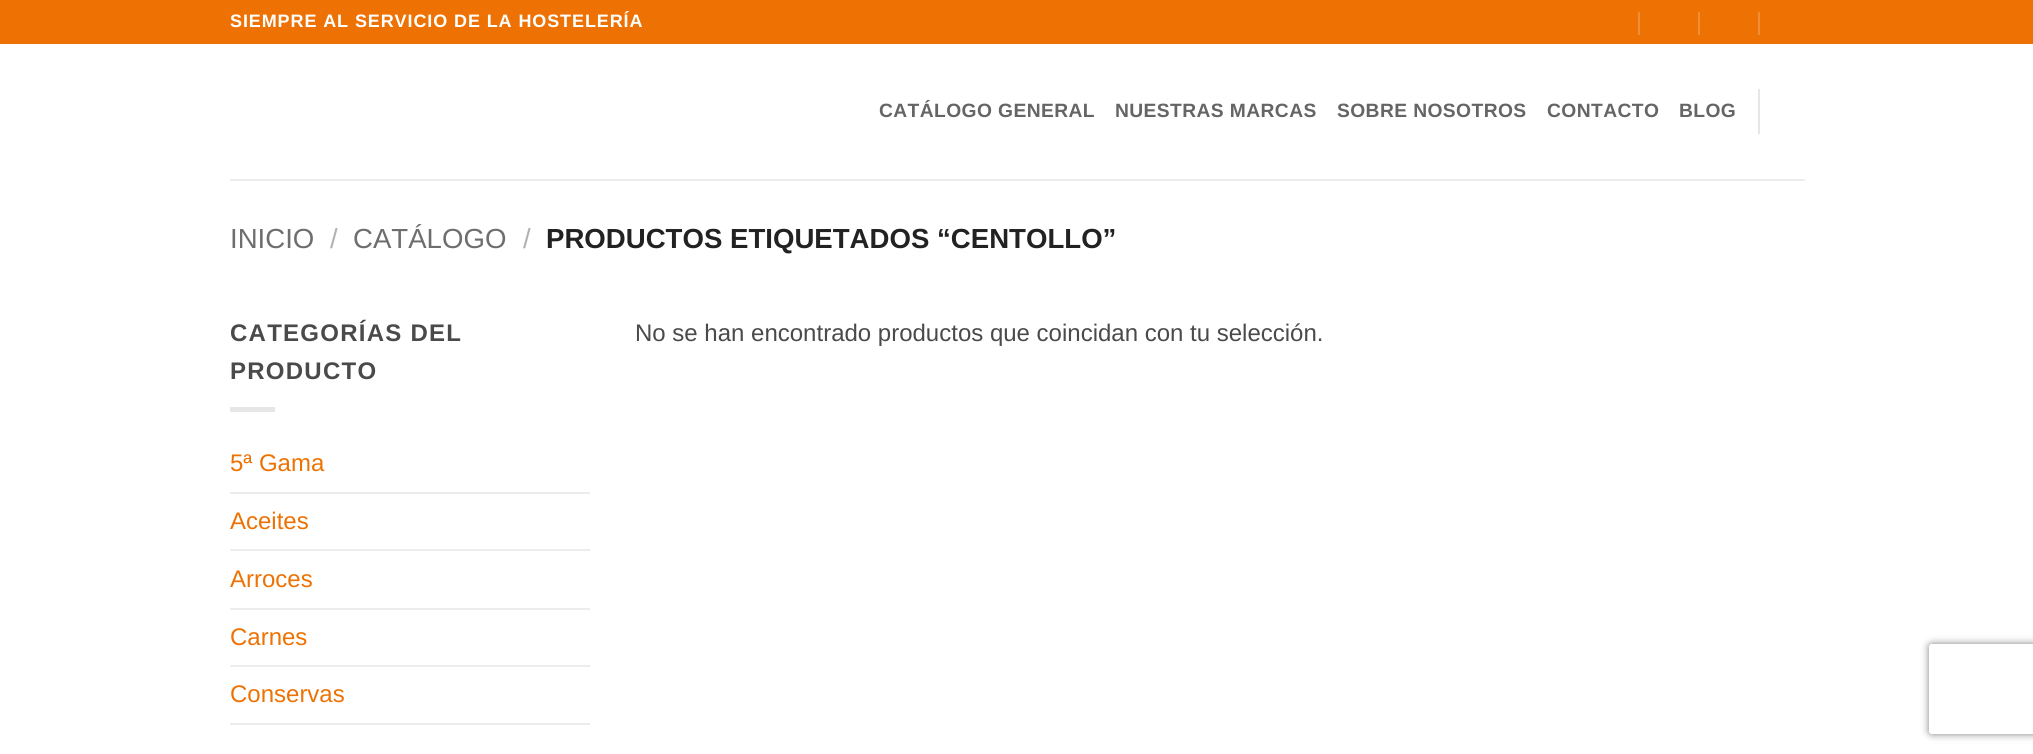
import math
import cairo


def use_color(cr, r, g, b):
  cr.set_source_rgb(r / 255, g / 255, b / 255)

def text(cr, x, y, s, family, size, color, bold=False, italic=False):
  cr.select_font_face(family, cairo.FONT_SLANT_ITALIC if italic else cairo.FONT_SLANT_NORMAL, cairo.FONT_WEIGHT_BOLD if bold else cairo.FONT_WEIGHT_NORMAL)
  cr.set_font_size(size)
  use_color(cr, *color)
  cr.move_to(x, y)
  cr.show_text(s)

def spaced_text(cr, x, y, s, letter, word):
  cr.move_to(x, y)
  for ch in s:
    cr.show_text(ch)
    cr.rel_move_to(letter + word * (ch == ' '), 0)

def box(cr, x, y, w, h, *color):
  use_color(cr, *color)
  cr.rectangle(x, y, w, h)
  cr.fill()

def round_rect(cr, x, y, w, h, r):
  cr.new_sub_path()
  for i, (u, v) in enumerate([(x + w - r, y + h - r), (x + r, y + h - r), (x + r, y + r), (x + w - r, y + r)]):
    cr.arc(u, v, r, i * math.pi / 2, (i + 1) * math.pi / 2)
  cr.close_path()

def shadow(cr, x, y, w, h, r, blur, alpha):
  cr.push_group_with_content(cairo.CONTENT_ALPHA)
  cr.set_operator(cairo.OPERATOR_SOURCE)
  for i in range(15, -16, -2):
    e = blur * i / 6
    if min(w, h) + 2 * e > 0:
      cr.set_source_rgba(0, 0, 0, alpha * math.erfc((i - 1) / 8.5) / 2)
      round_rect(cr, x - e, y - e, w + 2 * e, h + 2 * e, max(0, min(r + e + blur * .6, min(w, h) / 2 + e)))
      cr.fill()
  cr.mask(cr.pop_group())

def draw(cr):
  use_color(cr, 255, 255, 255)
  cr.paint()
  box(cr, 0, 0, 2033, 44, 237, 114, 3)
  box(cr, 1638, 12, 2, 23, 241, 142, 53)
  box(cr, 1698, 12, 2, 23, 241, 142, 53)
  box(cr, 1758, 12, 2, 23, 241, 142, 53)
  box(cr, 1758, 89, 2, 45, 230, 230, 230)
  box(cr, 230, 179, 1575, 2, 237, 237, 237)
  box(cr, 230, 407, 45, 5, 230, 230, 230)
  box(cr, 230, 492, 360, 2, 236, 236, 236)
  box(cr, 230, 549, 360, 2, 236, 236, 236)
  box(cr, 230, 608, 360, 2, 236, 236, 236)
  box(cr, 230, 665, 360, 2, 236, 236, 236)
  box(cr, 230, 723, 360, 2, 236, 236, 236)
  cr.save()
  cr.set_fill_rule(cairo.FILL_RULE_EVEN_ODD)
  cr.new_path()
  cr.move_to(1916, 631)
  cr.line_to(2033, 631)
  cr.line_to(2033, 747)
  cr.line_to(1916, 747)
  cr.close_path()
  cr.move_to(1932, 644)
  cr.line_to(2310, 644)
  cr.curve_to(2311.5, 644, 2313, 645.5, 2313, 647)
  cr.line_to(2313, 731)
  cr.curve_to(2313, 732.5, 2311.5, 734, 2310, 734)
  cr.line_to(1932, 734)
  cr.curve_to(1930.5, 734, 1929, 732.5, 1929, 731)
  cr.line_to(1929, 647)
  cr.curve_to(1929, 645.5, 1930.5, 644, 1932, 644)
  cr.close_path()
  cr.clip()
  use_color(cr, 128, 128, 128)
  shadow(cr, 1929, 644, 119, 90, 3, 4, 1)
  cr.restore()
  cr.select_font_face("Liberation Sans", cairo.FONT_SLANT_NORMAL, cairo.FONT_WEIGHT_BOLD)
  cr.set_font_size(18)
  use_color(cr, 255, 255, 255)
  spaced_text(cr, 230, 27, "SIEMPRE AL SERVICIO DE LA HOSTELERÍA", 0.9, 0)
  cr.set_font_size(19.25)
  use_color(cr, 101, 101, 101)
  spaced_text(cr, 879, 117, "CATÁLOGO GENERAL", 0.4, 0)
  spaced_text(cr, 1115, 117, "NUESTRAS MARCAS", 0.4, 0)
  spaced_text(cr, 1337, 117, "SOBRE NOSOTROS", 0.4, 0)
  spaced_text(cr, 1547, 117, "CONTACTO", 0.4, 0)
  spaced_text(cr, 1679, 117, "BLOG", 0.4, 0)
  text(cr, 230, 248, "INICIO", "Liberation Sans", 27.6, (110, 110, 110))
  text(cr, 330, 248, "/", "Liberation Sans", 27.6, (178, 178, 178))
  text(cr, 353, 248, "CATÁLOGO", "Liberation Sans", 27.6, (110, 110, 110))
  text(cr, 523, 248, "/", "Liberation Sans", 27.6, (178, 178, 178))
  text(cr, 546, 248, "PRODUCTOS ETIQUETADOS “CENTOLLO”", "Liberation Sans", 27.6, (34, 34, 34), bold=True)
  cr.set_font_size(24)
  use_color(cr, 74, 74, 74)
  spaced_text(cr, 230, 341, "CATEGORÍAS DEL", 1.25, 0)
  spaced_text(cr, 230, 379, "PRODUCTO", 1.25, 0)
  text(cr, 230, 471, "5ª Gama", "Liberation Sans", 24, (237, 114, 3))
  text(cr, 230, 529, "Aceites", "Liberation Sans", 24, (237, 114, 3))
  text(cr, 230, 587, "Arroces", "Liberation Sans", 24, (237, 114, 3))
  text(cr, 230, 645, "Carnes", "Liberation Sans", 24, (237, 114, 3))
  text(cr, 230, 702, "Conservas", "Liberation Sans", 24, (237, 114, 3))
  text(cr, 635, 341, "No se han encontrado productos que coincidan con tu selección.", "Liberation Sans", 24, (74, 74, 74))


surface = cairo.ImageSurface(cairo.FORMAT_RGB24, 2033, 754)
cr = cairo.Context(surface)
options = cairo.FontOptions()
options.set_hint_metrics(cairo.HINT_METRICS_OFF)
options.set_hint_style(cairo.HINT_STYLE_NONE)
cr.set_font_options(options)
cr.set_miter_limit(4)
draw(cr)
surface.write_to_png("out.png")
